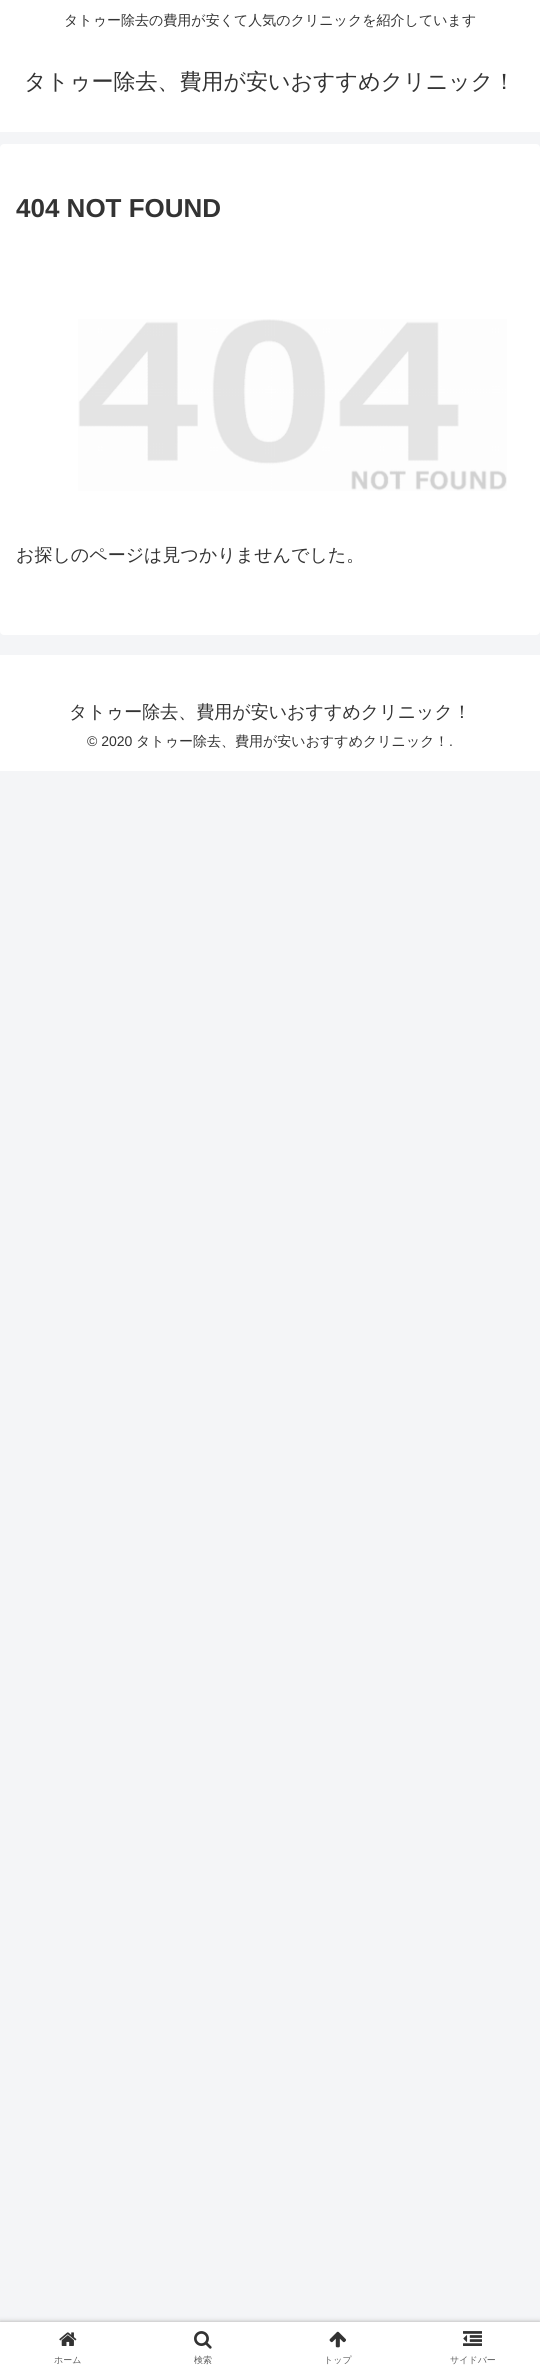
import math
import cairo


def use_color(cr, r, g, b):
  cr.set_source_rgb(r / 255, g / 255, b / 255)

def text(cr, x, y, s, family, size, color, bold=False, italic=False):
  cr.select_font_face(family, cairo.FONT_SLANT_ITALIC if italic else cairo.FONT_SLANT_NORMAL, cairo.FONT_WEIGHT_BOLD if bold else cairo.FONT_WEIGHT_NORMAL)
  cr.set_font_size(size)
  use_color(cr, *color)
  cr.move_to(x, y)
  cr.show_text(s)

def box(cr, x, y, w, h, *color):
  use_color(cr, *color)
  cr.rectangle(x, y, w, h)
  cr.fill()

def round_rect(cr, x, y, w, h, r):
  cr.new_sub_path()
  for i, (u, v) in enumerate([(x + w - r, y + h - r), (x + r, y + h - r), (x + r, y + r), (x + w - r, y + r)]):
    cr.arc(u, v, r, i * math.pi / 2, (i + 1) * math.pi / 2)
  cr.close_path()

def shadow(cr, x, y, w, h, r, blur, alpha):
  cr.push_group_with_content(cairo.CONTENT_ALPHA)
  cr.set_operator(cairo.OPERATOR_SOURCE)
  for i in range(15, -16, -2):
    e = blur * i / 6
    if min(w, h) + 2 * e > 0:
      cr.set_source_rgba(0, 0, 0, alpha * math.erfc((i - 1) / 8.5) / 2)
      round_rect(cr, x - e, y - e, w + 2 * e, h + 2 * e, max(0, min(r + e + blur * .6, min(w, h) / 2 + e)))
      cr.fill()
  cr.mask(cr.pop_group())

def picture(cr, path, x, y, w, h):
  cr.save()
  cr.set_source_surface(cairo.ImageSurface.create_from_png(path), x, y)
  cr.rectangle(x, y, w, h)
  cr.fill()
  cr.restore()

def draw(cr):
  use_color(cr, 244, 245, 247)
  cr.paint()
  box(cr, 0, 0, 540, 132, 255, 255, 255)
  round_rect(cr, 0, 144, 540, 491, 4)
  cr.fill()
  picture(cr, "img_01.png", 78, 319, 429, 172)
  box(cr, 0, 655, 540, 116, 255, 255, 255)
  use_color(cr, 169, 169, 169)
  shadow(cr, 0, 2322, 540, 50, 0, 2.5, 1)
  box(cr, 0, 2322, 540, 50, 255, 255, 255)
  picture(cr, "img_02.png", 59, 2332, 18, 14)
  picture(cr, "img_03.png", 194, 2331, 18, 18)
  picture(cr, "img_04.png", 329, 2331, 17, 17)
  picture(cr, "img_05.png", 463, 2331, 19, 15)
  text(cr, 64, 25, "タトゥー除去の費用が安くて人気のクリニックを紹介しています", "WenQuanYi Zen Hei Medium", 14, (51, 51, 51))
  text(cr, 24, 89, "タトゥー除去、費用が安いおすすめクリニック！", "WenQuanYi Zen Hei Medium", 22, (51, 51, 51))
  text(cr, 16, 217, "404 NOT FOUND", "Liberation Sans", 26, (51, 51, 51), bold=True)
  text(cr, 16, 561, "お探しのページは見つかりませんでした。", "WenQuanYi Zen Hei Medium", 18, (51, 51, 51))
  text(cr, 69, 718, "タトゥー除去、費用が安いおすすめクリニック！", "WenQuanYi Zen Hei Medium", 18, (51, 51, 51))
  text(cr, 87, 746, "© 2020", "Liberation Sans", 14, (51, 51, 51))
  text(cr, 136, 746, "タトゥー除去、費用が安いおすすめクリニック！", "WenQuanYi Zen Hei Medium", 14, (51, 51, 51))
  text(cr, 449, 746, ".", "Liberation Sans", 14, (51, 51, 51))
  text(cr, 54, 2363, "ホーム", "WenQuanYi Zen Hei Medium", 9, (92, 92, 92))
  text(cr, 194, 2363, "検索", "WenQuanYi Zen Hei Medium", 9, (92, 92, 92))
  text(cr, 324, 2363, "トップ", "WenQuanYi Zen Hei Medium", 9, (92, 92, 92))
  text(cr, 450, 2363, "サイドバー", "WenQuanYi Zen Hei Medium", 9, (92, 92, 92))


surface = cairo.ImageSurface(cairo.FORMAT_RGB24, 540, 2372)
cr = cairo.Context(surface)
options = cairo.FontOptions()
options.set_hint_metrics(cairo.HINT_METRICS_OFF)
options.set_hint_style(cairo.HINT_STYLE_NONE)
cr.set_font_options(options)
cr.set_miter_limit(4)
draw(cr)
surface.write_to_png("out.png")
